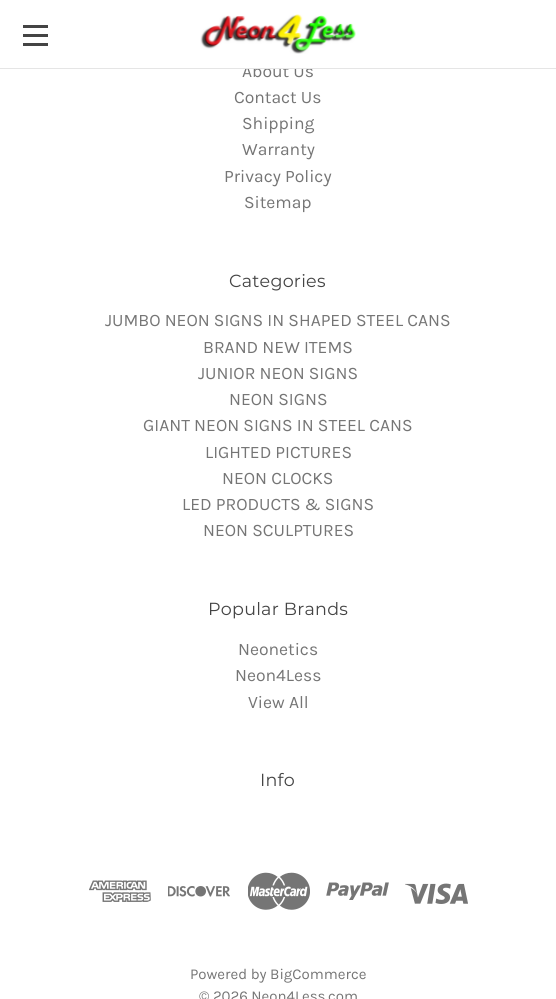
import math
import cairo


def use_color(cr, r, g, b):
  cr.set_source_rgb(r / 255, g / 255, b / 255)

def text(cr, x, y, s, family, size, color, bold=False, italic=False):
  cr.select_font_face(family, cairo.FONT_SLANT_ITALIC if italic else cairo.FONT_SLANT_NORMAL, cairo.FONT_WEIGHT_BOLD if bold else cairo.FONT_WEIGHT_NORMAL)
  cr.set_font_size(size)
  use_color(cr, *color)
  cr.move_to(x, y)
  cr.show_text(s)

def spaced_text(cr, x, y, s, letter, word):
  cr.move_to(x, y)
  for ch in s:
    cr.show_text(ch)
    cr.rel_move_to(letter + word * (ch == ' '), 0)

def box(cr, x, y, w, h, *color):
  use_color(cr, *color)
  cr.rectangle(x, y, w, h)
  cr.fill()

def picture(cr, path, x, y, w, h):
  cr.save()
  cr.set_source_surface(cairo.ImageSurface.create_from_png(path), x, y)
  cr.rectangle(x, y, w, h)
  cr.fill()
  cr.restore()

def draw(cr):
  use_color(cr, 255, 255, 255)
  cr.paint()
  box(cr, 23, 34, 25, 3, 68, 68, 68)
  box(cr, 23, 25, 25, 3, 68, 68, 68)
  box(cr, 23, 43, 25, 3, 68, 68, 68)
  picture(cr, "img_01.png", 200, 14, 156, 40)
  picture(cr, "img_02.png", 89, 880, 62, 22)
  picture(cr, "img_03.png", 168, 886, 62, 11)
  picture(cr, "img_04.png", 248, 872, 62, 38)
  picture(cr, "img_05.png", 326, 882, 63, 18)
  picture(cr, "img_06.png", 405, 883, 63, 21)
  text(cr, 242, 77, "About Us", "Karla", 17.5, (117, 117, 117))
  box(cr, 0, 68, 556, 1, 229, 229, 229)
  box(cr, 245, 65, 59, 3, 255, 255, 255)
  text(cr, 234, 103, "Contact Us", "Karla", 17.5, (117, 117, 117))
  text(cr, 242, 129, "Shipping", "Karla", 17.5, (117, 117, 117))
  text(cr, 242, 155, "Warranty", "Karla", 17.5, (117, 117, 117))
  text(cr, 224, 182, "Privacy Policy", "Karla", 17.5, (117, 117, 117))
  text(cr, 244, 208, "Sitemap", "Karla", 17.5, (117, 117, 117))
  cr.select_font_face("Montserrat Thin")
  use_color(cr, 68, 68, 68)
  spaced_text(cr, 229, 287, "Categories", 0.25, 0)
  text(cr, 105, 326, "JUMBO NEON SIGNS IN SHAPED STEEL CANS", "Karla", 17.5, (117, 117, 117))
  text(cr, 203, 353, "BRAND NEW ITEMS", "Karla", 17.5, (117, 117, 117))
  text(cr, 198, 379, "JUNIOR NEON SIGNS", "Karla", 17.5, (117, 117, 117))
  text(cr, 229, 405, "NEON SIGNS", "Karla", 17.5, (117, 117, 117))
  text(cr, 143, 431, "GIANT NEON SIGNS IN STEEL CANS", "Karla", 17.5, (117, 117, 117))
  text(cr, 205, 458, "LIGHTED PICTURES", "Karla", 17.5, (117, 117, 117))
  text(cr, 222, 484, "NEON CLOCKS", "Karla", 17.5, (117, 117, 117))
  text(cr, 182, 510, "LED PRODUCTS & SIGNS", "Karla", 17.5, (117, 117, 117))
  text(cr, 203, 536, "NEON SCULPTURES", "Karla", 17.5, (117, 117, 117))
  cr.select_font_face("Montserrat Thin")
  use_color(cr, 68, 68, 68)
  spaced_text(cr, 208, 615, "Popular Brands", 0.25, 0)
  text(cr, 238, 655, "Neonetics", "Karla", 17.5, (117, 117, 117))
  text(cr, 235, 681, "Neon4Less", "Karla", 17.5, (117, 117, 117))
  text(cr, 248, 708, "View All", "Karla", 17.5, (117, 117, 117))
  cr.select_font_face("Montserrat Thin")
  use_color(cr, 68, 68, 68)
  spaced_text(cr, 260, 786, "Info", 0.25, 0)
  text(cr, 190, 979, "Powered by BigCommerce", "Karla", 15, (117, 117, 117))
  text(cr, 199, 1001, "© 2026 Neon4Less.com", "Karla", 15, (117, 117, 117))


surface = cairo.ImageSurface(cairo.FORMAT_RGB24, 556, 999)
cr = cairo.Context(surface)
options = cairo.FontOptions()
options.set_hint_metrics(cairo.HINT_METRICS_OFF)
options.set_hint_style(cairo.HINT_STYLE_NONE)
cr.set_font_options(options)
cr.set_miter_limit(4)
draw(cr)
surface.write_to_png("out.png")
